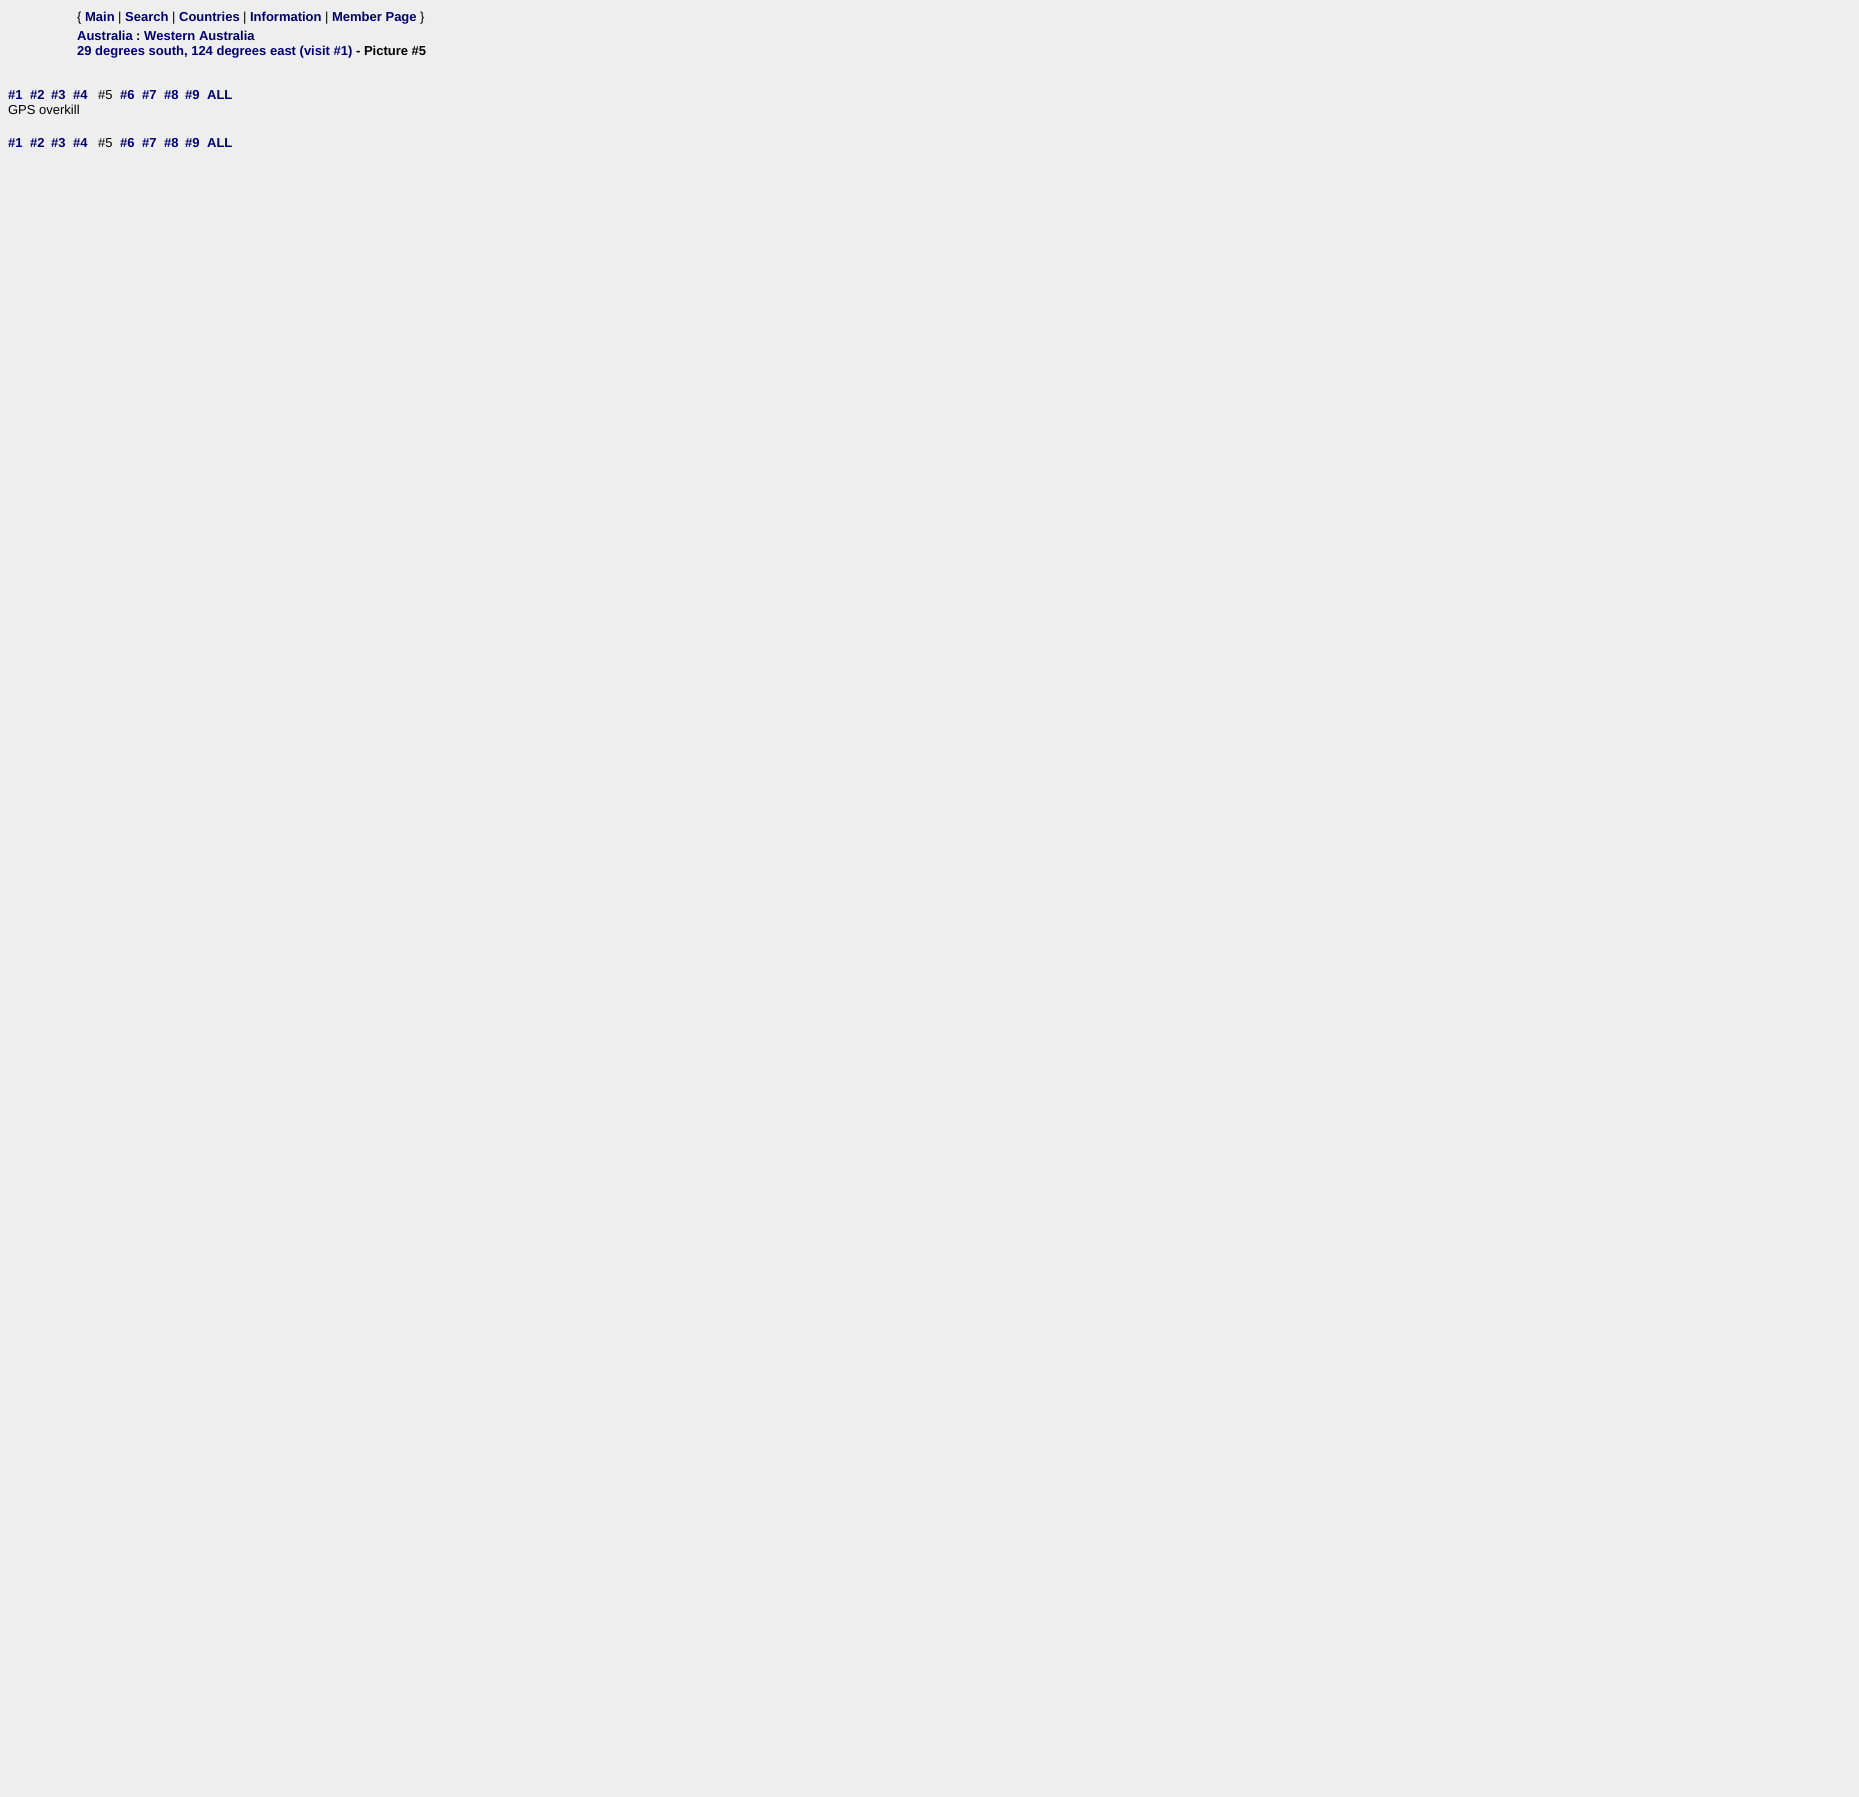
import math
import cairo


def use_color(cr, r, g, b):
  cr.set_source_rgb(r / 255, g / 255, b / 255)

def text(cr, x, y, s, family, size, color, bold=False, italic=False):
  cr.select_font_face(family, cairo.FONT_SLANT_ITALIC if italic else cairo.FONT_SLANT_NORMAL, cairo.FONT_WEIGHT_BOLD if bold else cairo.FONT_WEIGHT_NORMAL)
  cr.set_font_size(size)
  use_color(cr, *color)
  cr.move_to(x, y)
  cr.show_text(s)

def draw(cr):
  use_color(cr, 238, 238, 238)
  cr.paint()
  text(cr, 77, 21, "{", "Liberation Sans", 13, (0, 0, 0))
  text(cr, 85, 21, "Main", "Liberation Sans", 13, (0, 0, 112), bold=True)
  text(cr, 118, 21, "|", "Liberation Sans", 13, (0, 0, 0))
  text(cr, 125, 21, "Search", "Liberation Sans", 13, (0, 0, 112), bold=True)
  text(cr, 172, 21, "|", "Liberation Sans", 13, (0, 0, 0))
  text(cr, 179, 21, "Countries", "Liberation Sans", 13, (0, 0, 112), bold=True)
  text(cr, 243, 21, "|", "Liberation Sans", 13, (0, 0, 0))
  text(cr, 250, 21, "Information", "Liberation Sans", 13, (0, 0, 112), bold=True)
  text(cr, 325, 21, "|", "Liberation Sans", 13, (0, 0, 0))
  text(cr, 332, 21, "Member Page", "Liberation Sans", 13, (0, 0, 112), bold=True)
  text(cr, 420, 21, "}", "Liberation Sans", 13, (0, 0, 0))
  text(cr, 77, 40, "Australia", "Liberation Sans", 13, (0, 0, 112), bold=True)
  text(cr, 136, 40, ":", "Liberation Sans", 13, (0, 0, 0), bold=True)
  text(cr, 144, 40, "Western Australia", "Liberation Sans", 13, (0, 0, 112), bold=True)
  text(cr, 77, 55, "29 degrees south, 124 degrees east (visit #1)", "Liberation Sans", 13, (0, 0, 112), bold=True)
  text(cr, 356, 55, "- Picture #5", "Liberation Sans", 13, (0, 0, 0), bold=True)
  text(cr, 8, 99, "#1", "Liberation Sans", 13, (0, 0, 112), bold=True)
  text(cr, 30, 99, "#2", "Liberation Sans", 13, (0, 0, 112), bold=True)
  text(cr, 51, 99, "#3", "Liberation Sans", 13, (0, 0, 112), bold=True)
  text(cr, 73, 99, "#4", "Liberation Sans", 13, (0, 0, 112), bold=True)
  text(cr, 98, 99, "#5", "Liberation Sans", 13, (0, 0, 0))
  text(cr, 120, 99, "#6", "Liberation Sans", 13, (0, 0, 112), bold=True)
  text(cr, 142, 99, "#7", "Liberation Sans", 13, (0, 0, 112), bold=True)
  text(cr, 164, 99, "#8", "Liberation Sans", 13, (0, 0, 112), bold=True)
  text(cr, 185, 99, "#9", "Liberation Sans", 13, (0, 0, 112), bold=True)
  text(cr, 207, 99, "ALL", "Liberation Sans", 13, (0, 0, 112), bold=True)
  text(cr, 8, 114, "GPS overkill", "Liberation Sans", 13, (0, 0, 0))
  text(cr, 8, 147, "#1", "Liberation Sans", 13, (0, 0, 112), bold=True)
  text(cr, 30, 147, "#2", "Liberation Sans", 13, (0, 0, 112), bold=True)
  text(cr, 51, 147, "#3", "Liberation Sans", 13, (0, 0, 112), bold=True)
  text(cr, 73, 147, "#4", "Liberation Sans", 13, (0, 0, 112), bold=True)
  text(cr, 98, 147, "#5", "Liberation Sans", 13, (0, 0, 0))
  text(cr, 120, 147, "#6", "Liberation Sans", 13, (0, 0, 112), bold=True)
  text(cr, 142, 147, "#7", "Liberation Sans", 13, (0, 0, 112), bold=True)
  text(cr, 164, 147, "#8", "Liberation Sans", 13, (0, 0, 112), bold=True)
  text(cr, 185, 147, "#9", "Liberation Sans", 13, (0, 0, 112), bold=True)
  text(cr, 207, 147, "ALL", "Liberation Sans", 13, (0, 0, 112), bold=True)


surface = cairo.ImageSurface(cairo.FORMAT_RGB24, 1859, 1797)
cr = cairo.Context(surface)
options = cairo.FontOptions()
options.set_hint_metrics(cairo.HINT_METRICS_OFF)
options.set_hint_style(cairo.HINT_STYLE_NONE)
cr.set_font_options(options)
cr.set_miter_limit(4)
draw(cr)
surface.write_to_png("out.png")
